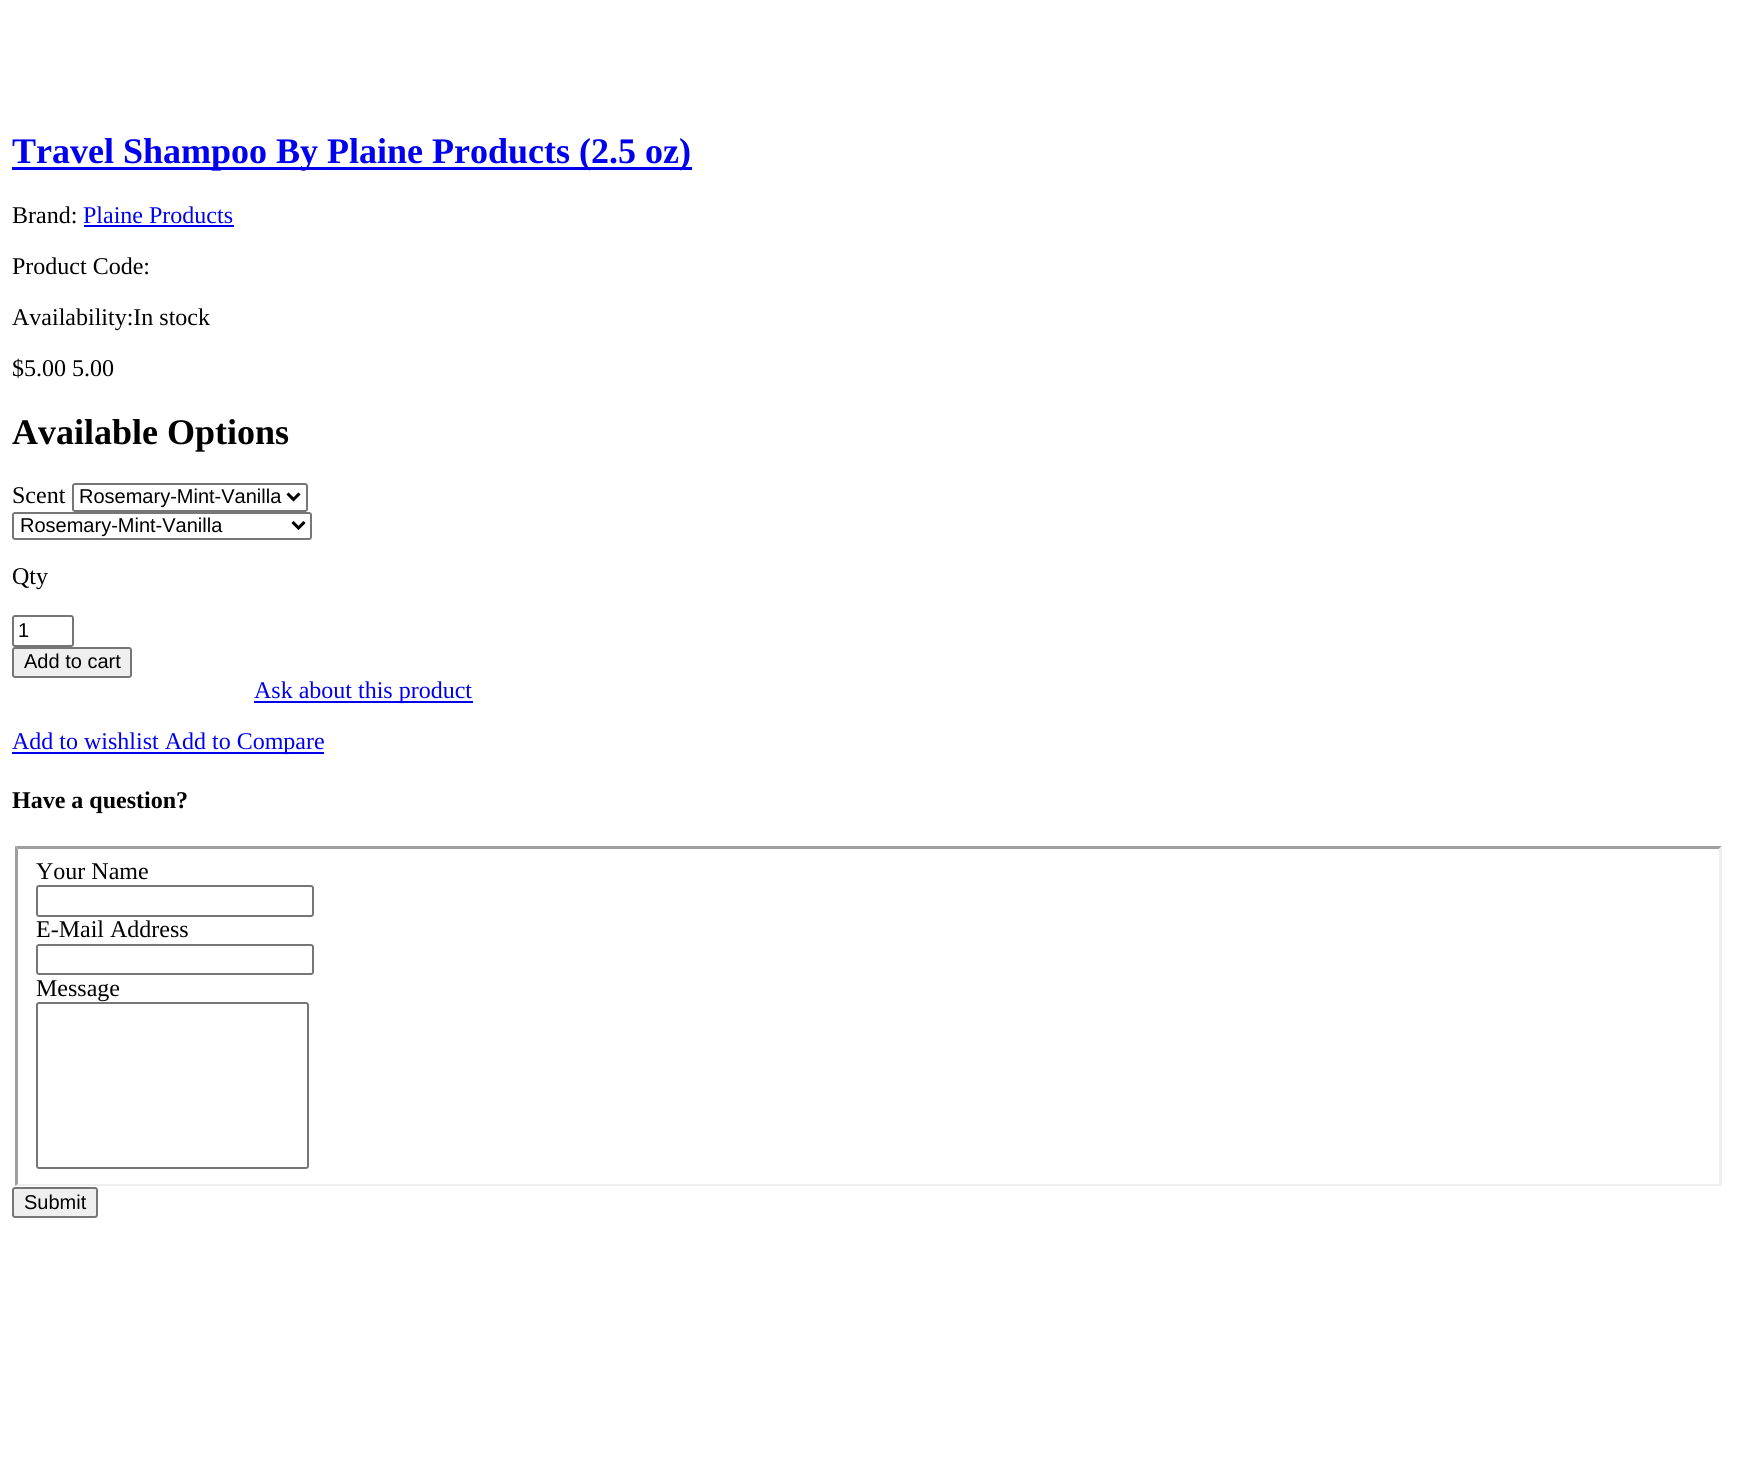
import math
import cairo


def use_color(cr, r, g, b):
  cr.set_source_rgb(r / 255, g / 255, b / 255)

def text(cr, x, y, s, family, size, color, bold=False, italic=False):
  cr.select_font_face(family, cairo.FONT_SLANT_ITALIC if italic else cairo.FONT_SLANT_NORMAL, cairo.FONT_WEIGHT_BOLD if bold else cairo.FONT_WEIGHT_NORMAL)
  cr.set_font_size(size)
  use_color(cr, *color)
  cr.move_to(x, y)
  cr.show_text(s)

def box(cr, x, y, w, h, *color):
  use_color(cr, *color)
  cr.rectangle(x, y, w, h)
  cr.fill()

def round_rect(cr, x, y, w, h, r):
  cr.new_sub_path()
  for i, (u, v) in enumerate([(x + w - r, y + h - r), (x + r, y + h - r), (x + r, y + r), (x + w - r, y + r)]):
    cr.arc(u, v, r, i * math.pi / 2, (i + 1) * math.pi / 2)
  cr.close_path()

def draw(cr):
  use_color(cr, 255, 255, 255)
  cr.paint()
  box(cr, 12, 167, 680, 3, 0, 0, 238)
  box(cr, 84, 225, 150, 2, 0, 0, 238)
  round_rect(cr, 73, 484, 234, 27, 2)
  use_color(cr, 118, 118, 118)
  cr.stroke()
  cr.new_path()
  cr.move_to(287.5, 493.5)
  cr.line_to(293.5, 499.5)
  cr.line_to(299.5, 493.5)
  use_color(cr, 0, 0, 0)
  cr.set_line_width(3)
  cr.stroke()
  round_rect(cr, 13, 513, 298, 26, 2)
  use_color(cr, 118, 118, 118)
  cr.set_line_width(2)
  cr.stroke()
  cr.new_path()
  cr.move_to(292.5, 522)
  cr.line_to(298.5, 528)
  cr.line_to(304.5, 522)
  use_color(cr, 0, 0, 0)
  cr.set_line_width(3)
  cr.stroke()
  round_rect(cr, 13, 616, 60, 30, 2)
  use_color(cr, 118, 118, 118)
  cr.set_line_width(2)
  cr.stroke()
  use_color(cr, 239, 239, 239)
  round_rect(cr, 13, 648, 118, 29, 2)
  cr.fill_preserve()
  use_color(cr, 118, 118, 118)
  cr.stroke()
  box(cr, 254, 701, 219, 2, 0, 0, 238)
  box(cr, 12, 752, 312, 2, 0, 0, 238)
  use_color(cr, 159, 159, 159)
  cr.new_path()
  cr.move_to(15, 846)
  cr.line_to(1722, 846)
  cr.line_to(1719, 849)
  cr.line_to(18, 849)
  cr.close_path()
  cr.fill()
  use_color(cr, 239, 239, 239)
  cr.new_path()
  cr.move_to(1722, 846)
  cr.line_to(1722, 1186)
  cr.line_to(1719, 1184)
  cr.line_to(1719, 849)
  cr.close_path()
  cr.fill()
  cr.new_path()
  cr.move_to(1722, 1186)
  cr.line_to(15, 1186)
  cr.line_to(18, 1184)
  cr.line_to(1719, 1184)
  cr.close_path()
  cr.fill()
  use_color(cr, 159, 159, 159)
  cr.new_path()
  cr.move_to(15, 1186)
  cr.line_to(15, 846)
  cr.line_to(18, 849)
  cr.line_to(18, 1184)
  cr.close_path()
  cr.fill()
  round_rect(cr, 37, 886, 276, 30, 2)
  use_color(cr, 118, 118, 118)
  cr.stroke()
  round_rect(cr, 37, 945, 276, 29, 2)
  cr.stroke()
  round_rect(cr, 37, 1003, 271, 165, 2)
  cr.stroke()
  use_color(cr, 239, 239, 239)
  round_rect(cr, 13, 1188, 84, 29, 2)
  cr.fill_preserve()
  use_color(cr, 118, 118, 118)
  cr.stroke()
  text(cr, 12, 163, "Travel Shampoo By Plaine Products (2.5 oz)", "Liberation Serif", 36, (0, 0, 238), bold=True)
  text(cr, 12, 223, "Brand:", "Liberation Serif", 24, (0, 0, 0))
  text(cr, 83, 223, "Plaine Products", "Liberation Serif", 24, (0, 0, 238))
  text(cr, 12, 274, "Product Code:", "Liberation Serif", 24, (0, 0, 0))
  text(cr, 12, 325, "Availability:In stock", "Liberation Serif", 24, (0, 0, 0))
  text(cr, 12, 376, "$5.00 5.00", "Liberation Serif", 24, (0, 0, 0))
  text(cr, 12, 444, "Available Options", "Liberation Serif", 36, (0, 0, 0), bold=True)
  text(cr, 12, 503, "Scent", "Liberation Serif", 24, (0, 0, 0))
  text(cr, 79, 503, "Rosemary-Mint-Vanilla", "Liberation Sans", 20, (0, 0, 0))
  text(cr, 20, 532, "Rosemary-Mint-Vanilla", "Liberation Sans", 20, (0, 0, 0))
  text(cr, 12, 584, "Qty", "Liberation Serif", 24, (0, 0, 0))
  text(cr, 18, 637, "1", "Liberation Sans", 20, (0, 0, 0))
  text(cr, 24, 668, "Add to cart", "Liberation Sans", 20, (0, 0, 0))
  text(cr, 254, 698, "Ask about this product", "Liberation Serif", 24, (0, 0, 238))
  text(cr, 12, 749, "Add to wishlist Add to Compare", "Liberation Serif", 24, (0, 0, 238))
  text(cr, 12, 808, "Have a question?", "Liberation Serif", 24, (0, 0, 0), bold=True)
  text(cr, 36, 879, "Your Name", "Liberation Serif", 24, (0, 0, 0))
  text(cr, 36, 937, "E-Mail Address", "Liberation Serif", 24, (0, 0, 0))
  text(cr, 36, 996, "Message", "Liberation Serif", 24, (0, 0, 0))
  text(cr, 24, 1209, "Submit", "Liberation Sans", 20, (0, 0, 0))


surface = cairo.ImageSurface(cairo.FORMAT_RGB24, 1737, 1478)
cr = cairo.Context(surface)
options = cairo.FontOptions()
options.set_hint_metrics(cairo.HINT_METRICS_OFF)
options.set_hint_style(cairo.HINT_STYLE_NONE)
cr.set_font_options(options)
cr.set_miter_limit(4)
draw(cr)
surface.write_to_png("out.png")
